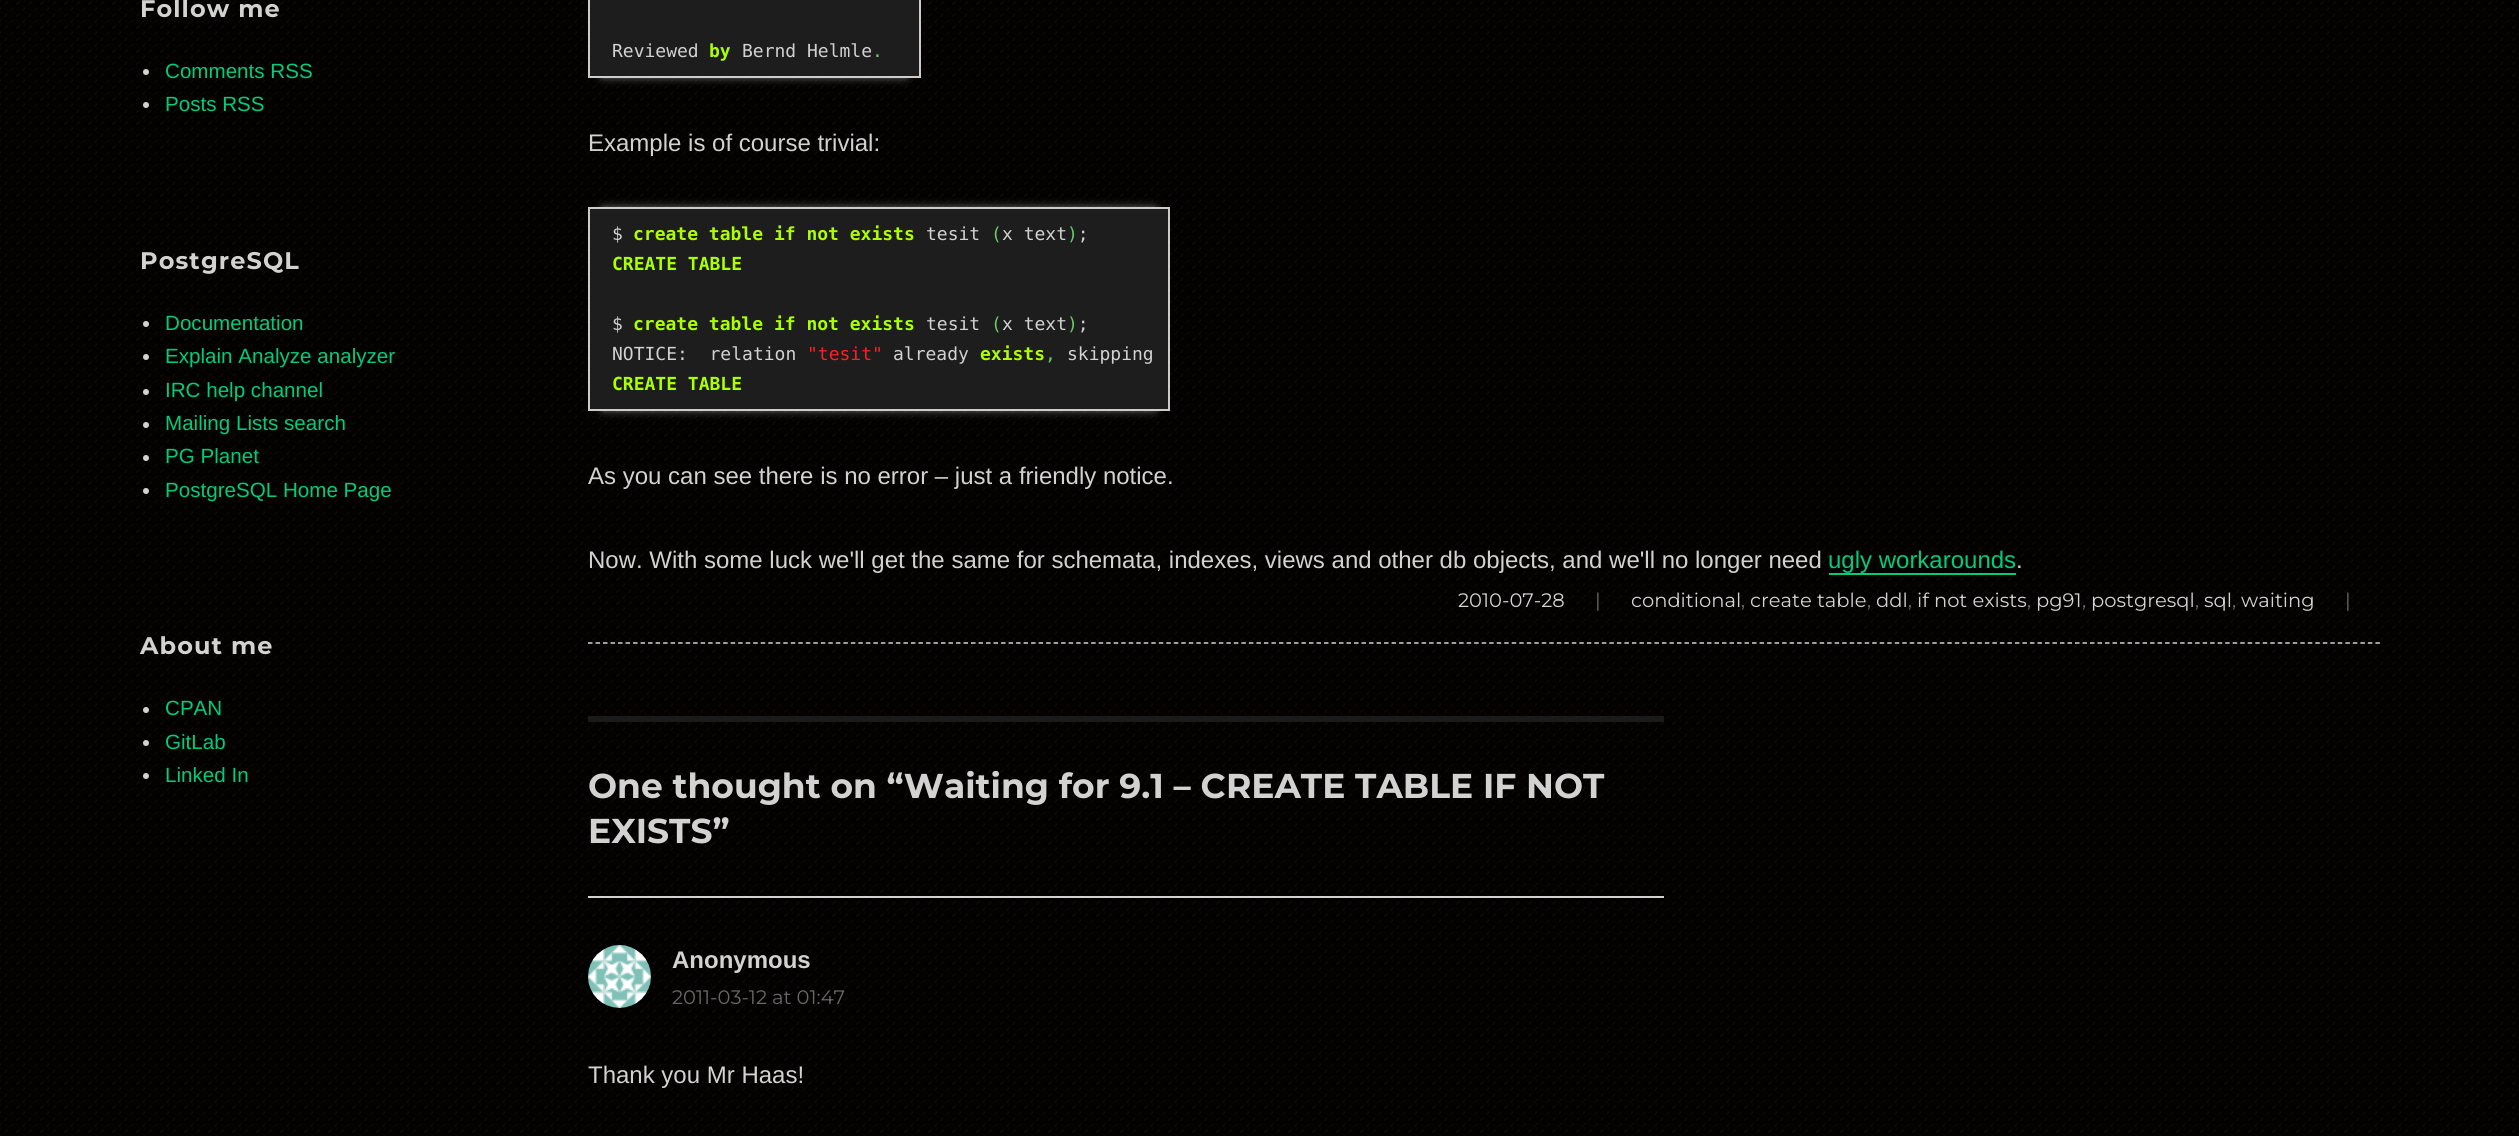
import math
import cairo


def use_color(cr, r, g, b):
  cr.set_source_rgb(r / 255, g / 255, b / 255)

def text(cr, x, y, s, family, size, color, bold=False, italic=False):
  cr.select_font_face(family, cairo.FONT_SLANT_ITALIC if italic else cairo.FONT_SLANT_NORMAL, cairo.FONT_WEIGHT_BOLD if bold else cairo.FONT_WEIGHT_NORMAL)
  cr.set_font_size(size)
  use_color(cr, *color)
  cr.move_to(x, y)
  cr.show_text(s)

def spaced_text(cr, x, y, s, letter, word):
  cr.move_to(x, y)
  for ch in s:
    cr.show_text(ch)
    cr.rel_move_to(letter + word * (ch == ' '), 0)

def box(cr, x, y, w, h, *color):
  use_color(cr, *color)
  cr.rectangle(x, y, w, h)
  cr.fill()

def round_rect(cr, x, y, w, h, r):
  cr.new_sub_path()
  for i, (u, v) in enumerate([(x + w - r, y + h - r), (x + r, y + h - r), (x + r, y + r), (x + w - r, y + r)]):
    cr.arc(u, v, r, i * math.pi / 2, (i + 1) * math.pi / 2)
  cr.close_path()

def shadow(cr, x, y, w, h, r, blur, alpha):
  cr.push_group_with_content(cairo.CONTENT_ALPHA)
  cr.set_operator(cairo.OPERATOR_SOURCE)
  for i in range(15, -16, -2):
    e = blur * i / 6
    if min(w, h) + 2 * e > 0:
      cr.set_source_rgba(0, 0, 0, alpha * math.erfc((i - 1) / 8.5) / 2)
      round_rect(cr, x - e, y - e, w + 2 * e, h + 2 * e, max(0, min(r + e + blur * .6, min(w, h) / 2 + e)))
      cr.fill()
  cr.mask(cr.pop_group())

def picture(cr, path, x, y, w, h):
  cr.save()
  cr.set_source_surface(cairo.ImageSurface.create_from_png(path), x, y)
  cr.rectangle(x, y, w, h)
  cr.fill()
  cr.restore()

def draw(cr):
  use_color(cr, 255, 255, 255)
  cr.paint()
  picture(cr, "img_01.png", 0, 0, 2519, 1136)
  use_color(cr, 210, 210, 210)
  cr.arc(146, 72, 3, 0, 2 * math.pi)
  cr.fill()
  cr.arc(146, 105, 3, 0, 2 * math.pi)
  cr.fill()
  cr.arc(146, 324, 3, 0, 2 * math.pi)
  cr.fill()
  cr.arc(146, 357, 3, 0, 2 * math.pi)
  cr.fill()
  cr.arc(146, 392, 3, 0, 2 * math.pi)
  cr.fill()
  cr.arc(146, 425, 3, 0, 2 * math.pi)
  cr.fill()
  cr.arc(146, 458, 3, 0, 2 * math.pi)
  cr.fill()
  cr.arc(146, 491, 3, 0, 2 * math.pi)
  cr.fill()
  cr.arc(146, 710, 3, 0, 2 * math.pi)
  cr.fill()
  cr.arc(146, 743, 3, 0, 2 * math.pi)
  cr.fill()
  cr.arc(146, 776, 3, 0, 2 * math.pi)
  cr.fill()
  cr.new_path()
  cr.move_to(588, 643)
  cr.line_to(2380.5, 643)
  cr.set_line_width(1.5)
  cr.set_dash([4.5, 3.01])
  cr.stroke()
  use_color(cr, 204, 204, 204)
  shadow(cr, 603, -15, 303, 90, 0, 5, 1)
  use_color(cr, 29, 29, 29)
  cr.rectangle(589, -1, 331, 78)
  cr.fill_preserve()
  use_color(cr, 204, 204, 204)
  cr.set_line_width(2)
  cr.set_dash([])
  cr.stroke()
  use_color(cr, 204, 204, 204)
  shadow(cr, 603, 210, 552, 174, 0, 5, 1)
  shadow(cr, 603, 234, 552, 174, 0, 5, 1)
  use_color(cr, 29, 29, 29)
  cr.rectangle(589, 208, 580, 202)
  cr.fill_preserve()
  use_color(cr, 204, 204, 204)
  cr.stroke()
  box(cr, 1829, 573, 187, 2, 0, 204, 122)
  box(cr, 588, 716, 1076, 6, 26, 26, 26)
  box(cr, 588, 896, 1076, 2, 209, 209, 209)
  picture(cr, "img_02.png", 588, 945, 63, 63)
  cr.select_font_face("Montserrat Thin")
  cr.set_font_size(24)
  use_color(cr, 210, 210, 210)
  spaced_text(cr, 140, 17, "Follow me", 1.1, 0)
  text(cr, 165, 78, "Comments RSS", "Liberation Sans", 20.6, (0, 204, 122))
  text(cr, 165, 111, "Posts RSS", "Liberation Sans", 20.6, (0, 204, 122))
  cr.select_font_face("Montserrat Thin")
  cr.set_font_size(24)
  use_color(cr, 210, 210, 210)
  spaced_text(cr, 140, 269, "PostgreSQL", 1.1, 0)
  text(cr, 165, 330, "Documentation", "Liberation Sans", 20.6, (0, 204, 122))
  text(cr, 165, 363, "Explain Analyze analyzer", "Liberation Sans", 20.6, (0, 204, 122))
  text(cr, 165, 397, "IRC help channel", "Liberation Sans", 20.6, (0, 204, 122))
  text(cr, 165, 430, "Mailing Lists search", "Liberation Sans", 20.6, (0, 204, 122))
  text(cr, 165, 463, "PG Planet", "Liberation Sans", 20.6, (0, 204, 122))
  text(cr, 165, 497, "PostgreSQL Home Page", "Liberation Sans", 20.6, (0, 204, 122))
  cr.select_font_face("Montserrat Thin")
  cr.set_font_size(24)
  use_color(cr, 210, 210, 210)
  spaced_text(cr, 140, 654, "About me", 1.1, 0)
  text(cr, 165, 715, "CPAN", "Liberation Sans", 20.6, (0, 204, 122))
  text(cr, 165, 749, "GitLab", "Liberation Sans", 20.6, (0, 204, 122))
  text(cr, 165, 782, "Linked In", "Liberation Sans", 20.6, (0, 204, 122))
  text(cr, 612, 57, "Reviewed", "DejaVu Sans Mono", 18, (210, 210, 210))
  text(cr, 709, 57, "by", "DejaVu Sans Mono", 18, (170, 255, 0), bold=True)
  text(cr, 742, 57, "Bernd Helmle", "DejaVu Sans Mono", 18, (210, 210, 210))
  text(cr, 872, 57, ".", "DejaVu Sans Mono", 18, (102, 204, 102))
  text(cr, 588, 151, "Example is of course trivial:", "Liberation Sans", 24, (210, 210, 210))
  text(cr, 612, 240, "$", "DejaVu Sans Mono", 18, (210, 210, 210))
  text(cr, 633, 240, "create table if not exists", "DejaVu Sans Mono", 18, (170, 255, 0), bold=True)
  text(cr, 926, 240, "tesit", "DejaVu Sans Mono", 18, (210, 210, 210))
  text(cr, 991, 240, "(", "DejaVu Sans Mono", 18, (102, 204, 102))
  text(cr, 1002, 240, "x text ;", "DejaVu Sans Mono", 18, (210, 210, 210))
  text(cr, 1067, 240, ")", "DejaVu Sans Mono", 18, (102, 204, 102))
  text(cr, 612, 270, "CREATE TABLE", "DejaVu Sans Mono", 18, (170, 255, 0), bold=True)
  text(cr, 612, 330, "$", "DejaVu Sans Mono", 18, (210, 210, 210))
  text(cr, 633, 330, "create table if not exists", "DejaVu Sans Mono", 18, (170, 255, 0), bold=True)
  text(cr, 926, 330, "tesit", "DejaVu Sans Mono", 18, (210, 210, 210))
  text(cr, 991, 330, "(", "DejaVu Sans Mono", 18, (102, 204, 102))
  text(cr, 1002, 330, "x text ;", "DejaVu Sans Mono", 18, (210, 210, 210))
  text(cr, 1067, 330, ")", "DejaVu Sans Mono", 18, (102, 204, 102))
  text(cr, 612, 360, "NOTICE:  relation", "DejaVu Sans Mono", 18, (210, 210, 210))
  text(cr, 807, 360, "\"tesit\"", "DejaVu Sans Mono", 18, (255, 32, 32))
  text(cr, 893, 360, "already", "DejaVu Sans Mono", 18, (210, 210, 210))
  text(cr, 980, 360, "exists", "DejaVu Sans Mono", 18, (170, 255, 0), bold=True)
  text(cr, 1045, 360, ",", "DejaVu Sans Mono", 18, (102, 204, 102))
  text(cr, 1067, 360, "skipping", "DejaVu Sans Mono", 18, (210, 210, 210))
  text(cr, 612, 390, "CREATE TABLE", "DejaVu Sans Mono", 18, (170, 255, 0), bold=True)
  text(cr, 588, 484, "As you can see there is no error – just a friendly notice.", "Liberation Sans", 24, (210, 210, 210))
  text(cr, 588, 568, "Now. With some luck we'll get the same for schemata, indexes, views and other db objects, and we'll no longer need", "Liberation Sans", 24, (210, 210, 210))
  text(cr, 1828, 568, "ugly workarounds", "Liberation Sans", 24, (0, 204, 122))
  text(cr, 2016, 568, ".", "Liberation Sans", 24, (210, 210, 210))
  text(cr, 1458, 607, "2010-07-28", "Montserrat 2 Thin", 19.5, (210, 210, 210))
  text(cr, 1595, 607, "|", "Montserrat 2 Thin", 19.5, (104, 104, 104))
  text(cr, 1631, 607, "conditional", "Montserrat 2 Thin", 19.5, (210, 210, 210))
  text(cr, 1741, 607, ",", "Montserrat 2 Thin", 19.5, (104, 104, 104))
  text(cr, 1750, 607, "create table", "Montserrat 2 Thin", 19.5, (210, 210, 210))
  text(cr, 1867, 607, ",", "Montserrat 2 Thin", 19.5, (104, 104, 104))
  text(cr, 1876, 607, "ddl", "Montserrat 2 Thin", 19.5, (210, 210, 210))
  text(cr, 1908, 607, ",", "Montserrat 2 Thin", 19.5, (104, 104, 104))
  text(cr, 1917, 607, "if not exists", "Montserrat 2 Thin", 19.5, (210, 210, 210))
  text(cr, 2027, 607, ",", "Montserrat 2 Thin", 19.5, (104, 104, 104))
  text(cr, 2036, 607, "pg91", "Montserrat 2 Thin", 19.5, (210, 210, 210))
  text(cr, 2082, 607, ",", "Montserrat 2 Thin", 19.5, (104, 104, 104))
  text(cr, 2091, 607, "postgresql", "Montserrat 2 Thin", 19.5, (210, 210, 210))
  text(cr, 2195, 607, ",", "Montserrat 2 Thin", 19.5, (104, 104, 104))
  text(cr, 2204, 607, "sql", "Montserrat 2 Thin", 19.5, (210, 210, 210))
  text(cr, 2232, 607, ",", "Montserrat 2 Thin", 19.5, (104, 104, 104))
  text(cr, 2241, 607, "waiting", "Montserrat 2 Thin", 19.5, (210, 210, 210))
  text(cr, 2345, 607, "|", "Montserrat 2 Thin", 19.5, (104, 104, 104))
  text(cr, 588, 798, "One thought on “Waiting for 9.1 – CREATE TABLE IF NOT", "Montserrat Thin", 34.5, (210, 210, 210))
  text(cr, 588, 843, "EXISTS”", "Montserrat Thin", 34.5, (210, 210, 210))
  text(cr, 672, 968, "Anonymous", "Liberation Sans", 24, (210, 210, 210), bold=True)
  text(cr, 672, 1004, "2011-03-12 at 01:47", "Montserrat 2 Thin", 19.5, (104, 104, 104))
  text(cr, 588, 1083, "Thank you Mr Haas!", "Liberation Sans", 24, (210, 210, 210))


surface = cairo.ImageSurface(cairo.FORMAT_RGB24, 2519, 1136)
cr = cairo.Context(surface)
options = cairo.FontOptions()
options.set_hint_metrics(cairo.HINT_METRICS_OFF)
options.set_hint_style(cairo.HINT_STYLE_NONE)
cr.set_font_options(options)
cr.set_miter_limit(4)
draw(cr)
surface.write_to_png("out.png")
